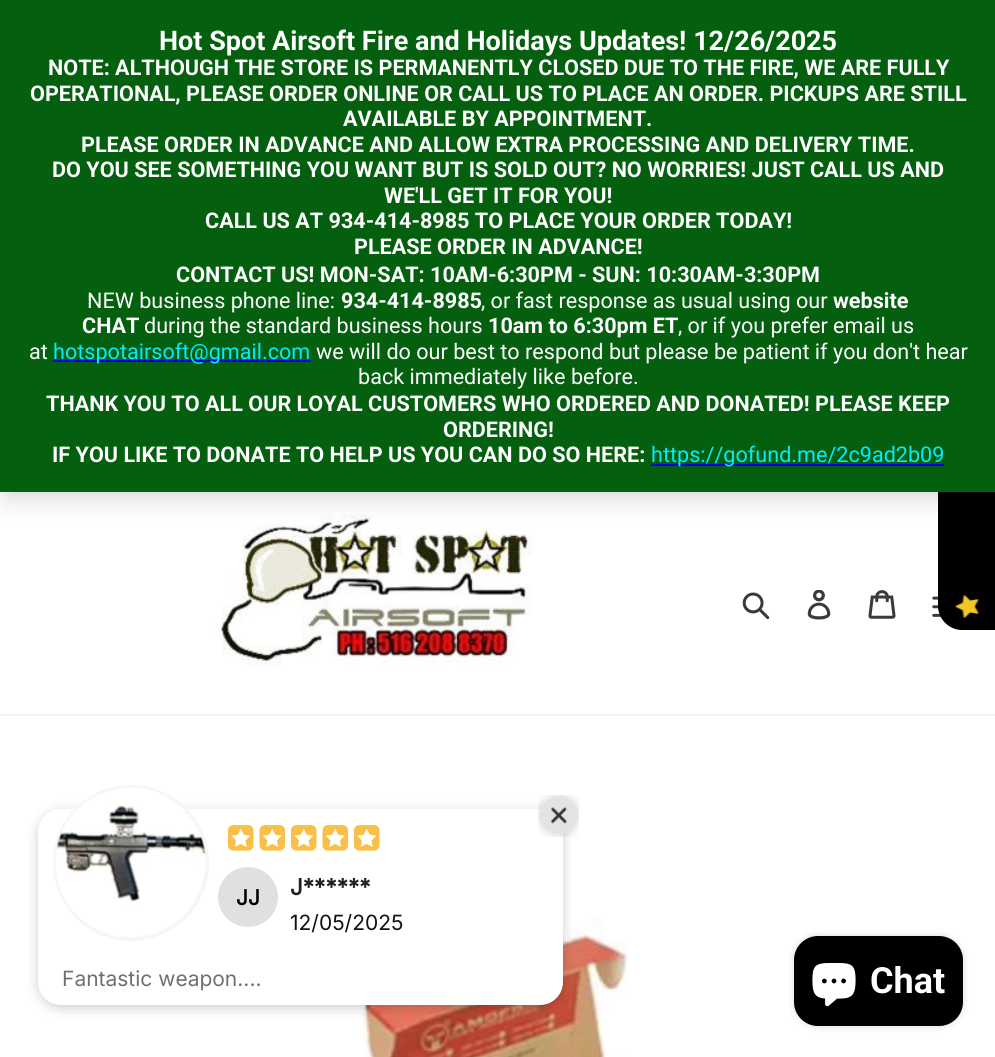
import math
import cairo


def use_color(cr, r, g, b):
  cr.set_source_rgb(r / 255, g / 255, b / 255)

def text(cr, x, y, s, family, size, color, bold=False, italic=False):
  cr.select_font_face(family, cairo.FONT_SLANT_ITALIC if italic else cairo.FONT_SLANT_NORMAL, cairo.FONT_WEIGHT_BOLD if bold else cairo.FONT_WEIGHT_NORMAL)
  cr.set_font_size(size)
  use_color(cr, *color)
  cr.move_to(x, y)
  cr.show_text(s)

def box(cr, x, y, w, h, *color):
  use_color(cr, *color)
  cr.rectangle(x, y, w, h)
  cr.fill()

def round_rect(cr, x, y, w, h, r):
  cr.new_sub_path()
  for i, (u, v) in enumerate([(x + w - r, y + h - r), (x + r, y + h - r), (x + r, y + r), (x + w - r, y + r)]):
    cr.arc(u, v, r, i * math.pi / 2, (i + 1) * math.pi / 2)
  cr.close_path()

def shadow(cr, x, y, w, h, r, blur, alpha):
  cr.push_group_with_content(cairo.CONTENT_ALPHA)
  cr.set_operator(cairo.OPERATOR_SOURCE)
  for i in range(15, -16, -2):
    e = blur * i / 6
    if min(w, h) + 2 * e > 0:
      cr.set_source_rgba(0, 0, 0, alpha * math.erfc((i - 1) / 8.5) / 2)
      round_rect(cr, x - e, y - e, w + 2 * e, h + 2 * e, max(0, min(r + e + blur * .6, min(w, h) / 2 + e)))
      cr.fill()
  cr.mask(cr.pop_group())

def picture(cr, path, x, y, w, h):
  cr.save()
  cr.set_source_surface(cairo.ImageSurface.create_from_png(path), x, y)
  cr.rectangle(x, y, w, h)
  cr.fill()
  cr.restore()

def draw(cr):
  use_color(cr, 255, 255, 255)
  cr.paint()
  picture(cr, "img_06.png", 932, 596, 9, 21)
  use_color(cr, 0, 0, 0)
  cr.new_path()
  cr.move_to(938, 606)
  cr.line_to(938, 461)
  cr.curve_to(938, 448, 949, 437, 962, 437)
  cr.line_to(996, 437)
  cr.line_to(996, 630)
  cr.line_to(962, 630)
  cr.curve_to(949, 630, 938, 619, 938, 606)
  cr.close_path()
  cr.fill()
  use_color(cr, 0, 0, 0)
  shadow(cr, 3, 9, 990, 486, 0, 4.5, 0.05)
  picture(cr, "img_02.png", 215, 514, 317, 152)
  shadow(cr, 5, 20, 987, 483, 0, 11, 0.1)
  box(cr, 0, 0, 995, 492, 4, 95, 15)
  box(cr, 53, 360, 258, 2, 0, 0, 238)
  box(cr, 651, 464, 293, 2, 0, 0, 238)
  picture(cr, "img_01.png", 955, 595, 24, 23)
  box(cr, 0, 714, 995, 2, 245, 245, 245)
  picture(cr, "img_03.png", 742, 592, 28, 28)
  picture(cr, "img_04.png", 807, 590, 24, 30)
  picture(cr, "img_05.png", 868, 590, 28, 29)
  picture(cr, "img_13.png", 362, 916, 266, 141)
  use_color(cr, 0, 0, 0)
  shadow(cr, 38, 812, 525, 196, 23, 6, 0.2)
  use_color(cr, 255, 255, 255)
  round_rect(cr, 38, 809, 525, 196, 23)
  cr.fill()
  use_color(cr, 246, 246, 246)
  cr.arc(131, 863, 78, 0, 2 * math.pi)
  cr.fill()
  picture(cr, "img_07.png", 55, 787, 151, 151)
  picture(cr, "img_08.png", 538, 795, 41, 42)
  picture(cr, "img_09.png", 228, 825, 26, 26)
  picture(cr, "img_10.png", 231, 828, 20, 19)
  picture(cr, "img_11.png", 259, 825, 27, 26)
  picture(cr, "img_12.png", 262, 828, 20, 19)
  picture(cr, "img_09.png", 291, 825, 26, 26)
  picture(cr, "img_10.png", 294, 828, 20, 19)
  picture(cr, "img_11.png", 322, 825, 27, 26)
  picture(cr, "img_12.png", 325, 828, 20, 19)
  picture(cr, "img_09.png", 354, 825, 26, 26)
  picture(cr, "img_10.png", 357, 828, 20, 19)
  use_color(cr, 224, 224, 226)
  cr.arc(248, 897, 30, 0, 2 * math.pi)
  cr.fill()
  use_color(cr, 0, 0, 0)
  shadow(cr, 794, 936, 169, 90, 24, 4, 0.15)
  use_color(cr, 0, 0, 0)
  round_rect(cr, 794, 936, 169, 90, 24)
  cr.fill()
  picture(cr, "img_14.png", 812, 963, 44, 44)
  text(cr, 159, 50, "Hot Spot Airsoft Fire and Holidays Updates! 12/26/2025", "Roboto", 27, (255, 255, 255), bold=True)
  text(cr, 48, 75, "NOTE: ALTHOUGH THE STORE IS PERMANENTLY CLOSED DUE TO THE FIRE, WE ARE FULLY", "Roboto", 21.6, (255, 255, 255), bold=True)
  text(cr, 30, 101, "OPERATIONAL, PLEASE ORDER ONLINE OR CALL US TO PLACE AN ORDER. PICKUPS ARE STILL", "Roboto", 21.6, (255, 255, 255), bold=True)
  text(cr, 343, 126, "AVAILABLE BY APPOINTMENT.", "Roboto", 21.6, (255, 255, 255), bold=True)
  text(cr, 81, 152, "PLEASE ORDER IN ADVANCE AND ALLOW EXTRA PROCESSING AND DELIVERY TIME.", "Roboto", 21.6, (255, 255, 255), bold=True)
  text(cr, 52, 177, "DO YOU SEE SOMETHING YOU WANT BUT IS SOLD OUT? NO WORRIES! JUST CALL US AND", "Roboto", 21.6, (255, 255, 255), bold=True)
  text(cr, 384, 203, "WE'LL GET IT FOR YOU!", "Roboto", 21.6, (255, 255, 255), bold=True)
  text(cr, 205, 228, "CALL US AT 934-414-8985 TO PLACE YOUR ORDER TODAY!", "Roboto", 21.6, (255, 255, 255), bold=True)
  text(cr, 354, 254, "PLEASE ORDER IN ADVANCE!", "Roboto", 21.6, (255, 255, 255), bold=True)
  text(cr, 176, 282, "CONTACT US! MON-SAT: 10AM-6:30PM - SUN: 10:30AM-3:30PM", "Roboto", 21.6, (255, 255, 255), bold=True)
  text(cr, 87, 308, "NEW business phone line:", "Roboto", 21.6, (255, 255, 255))
  text(cr, 341, 308, "934-414-8985", "Roboto", 21.6, (255, 255, 255), bold=True)
  text(cr, 481, 308, ", or fast response as usual using our", "Roboto", 21.6, (255, 255, 255))
  text(cr, 833, 308, "website", "Roboto", 21.6, (255, 255, 255), bold=True)
  text(cr, 82, 333, "CHAT", "Roboto", 21.6, (255, 255, 255), bold=True)
  text(cr, 144, 333, "during the standard business hours", "Roboto", 21.6, (255, 255, 255))
  text(cr, 488, 333, "10am to 6:30pm ET", "Roboto", 21.6, (255, 255, 255), bold=True)
  text(cr, 678, 333, ", or if you prefer email us", "Roboto", 21.6, (255, 255, 255))
  text(cr, 29, 359, "at", "Roboto", 21.6, (255, 255, 255))
  text(cr, 53, 359, "hotspotairsoft@gmail.com", "Roboto", 21.6, (4, 235, 251))
  text(cr, 316, 359, "we will do our best to respond but please be patient if you don't hear", "Roboto", 21.6, (255, 255, 255))
  text(cr, 358, 384, "back immediately like before.", "Roboto", 21.6, (255, 255, 255))
  text(cr, 46, 411, "THANK YOU TO ALL OUR LOYAL CUSTOMERS WHO ORDERED AND DONATED! PLEASE KEEP", "Roboto", 21.6, (255, 255, 255), bold=True)
  text(cr, 443, 437, "ORDERING!", "Roboto", 21.6, (255, 255, 255), bold=True)
  text(cr, 52, 462, "IF YOU LIKE TO DONATE TO HELP US YOU CAN DO SO HERE:", "Roboto", 21.6, (255, 255, 255), bold=True)
  text(cr, 651, 462, "https://gofund.me/2c9ad2b09", "Roboto", 21.6, (4, 235, 251))
  text(cr, 236, 905, "JJ", "Inter", 21, (0, 0, 0), bold=True)
  text(cr, 290, 895, "J******", "Inter", 22.5, (32, 34, 35), bold=True)
  text(cr, 290, 930, "12/05/2025", "Inter", 21, (18, 18, 18))
  text(cr, 62, 986, "Fantastic weapon....", "Inter", 21, (109, 113, 117))
  text(cr, 870, 993, "Chat", "Roboto", 36, (255, 255, 255), bold=True)


surface = cairo.ImageSurface(cairo.FORMAT_RGB24, 995, 1057)
cr = cairo.Context(surface)
options = cairo.FontOptions()
options.set_hint_metrics(cairo.HINT_METRICS_OFF)
options.set_hint_style(cairo.HINT_STYLE_NONE)
cr.set_font_options(options)
cr.set_miter_limit(4)
draw(cr)
surface.write_to_png("out.png")
